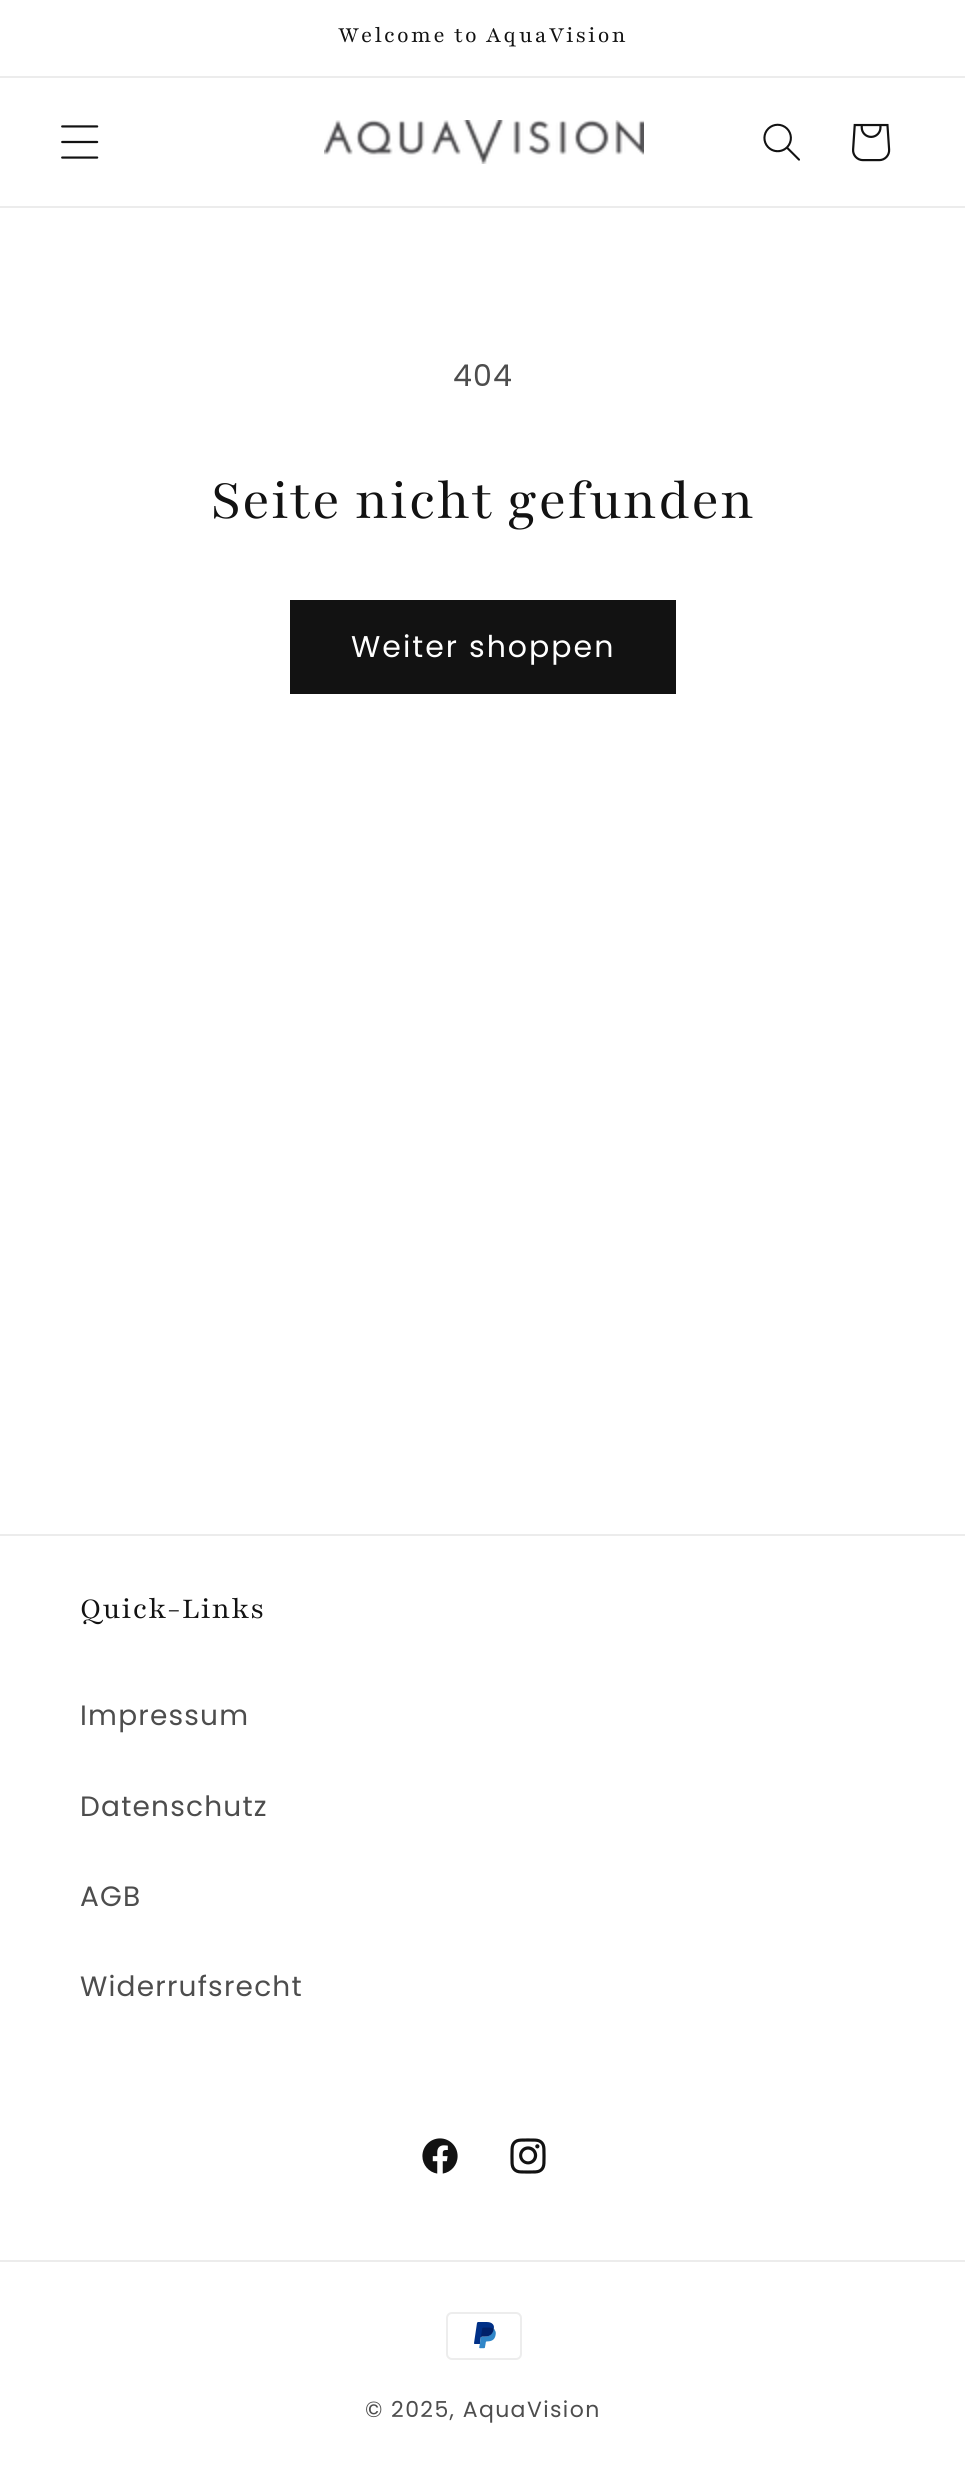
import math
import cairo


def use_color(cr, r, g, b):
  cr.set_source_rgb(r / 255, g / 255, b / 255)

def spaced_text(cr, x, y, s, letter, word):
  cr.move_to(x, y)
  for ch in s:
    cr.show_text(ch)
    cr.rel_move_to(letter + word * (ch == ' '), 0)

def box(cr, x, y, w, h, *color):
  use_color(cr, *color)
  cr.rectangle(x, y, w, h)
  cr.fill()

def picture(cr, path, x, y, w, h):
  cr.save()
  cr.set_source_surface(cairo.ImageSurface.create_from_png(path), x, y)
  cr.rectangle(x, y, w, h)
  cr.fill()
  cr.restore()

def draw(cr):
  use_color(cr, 255, 255, 255)
  cr.paint()
  box(cr, 0, 76, 965, 2, 236, 236, 236)
  box(cr, 0, 206, 965, 2, 236, 236, 236)
  picture(cr, "img_01.png", 61, 125, 38, 34)
  picture(cr, "img_02.png", 324, 120, 320, 44)
  picture(cr, "img_03.png", 763, 123, 37, 38)
  picture(cr, "img_04.png", 852, 123, 39, 39)
  box(cr, 290, 600, 386, 94, 18, 18, 18)
  box(cr, 0, 1534, 965, 2, 236, 236, 236)
  picture(cr, "img_05.png", 422, 2138, 36, 36)
  picture(cr, "img_06.png", 510, 2138, 36, 36)
  box(cr, 0, 2260, 965, 2, 236, 236, 236)
  picture(cr, "img_07.png", 446, 2312, 76, 48)
  cr.select_font_face("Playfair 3")
  cr.set_font_size(24)
  use_color(cr, 18, 18, 18)
  spaced_text(cr, 338, 42, "Welcome to AquaVision", 2, 0)
  cr.select_font_face("Poppins")
  cr.set_font_size(30)
  use_color(cr, 77, 77, 77)
  spaced_text(cr, 453, 386, "404", 1.2, 0)
  cr.select_font_face("Playfair")
  cr.set_font_size(60)
  use_color(cr, 18, 18, 18)
  spaced_text(cr, 211, 518, "Seite nicht gefunden", 1.2, 0)
  cr.select_font_face("Poppins")
  cr.set_font_size(30)
  use_color(cr, 255, 255, 255)
  spaced_text(cr, 351, 657, "Weiter shoppen", 2, 0)
  cr.select_font_face("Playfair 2")
  cr.set_font_size(32)
  use_color(cr, 18, 18, 18)
  spaced_text(cr, 80, 1618, "Quick-Links", 1.2, 0)
  cr.select_font_face("Poppins")
  cr.set_font_size(28)
  use_color(cr, 77, 77, 77)
  spaced_text(cr, 80, 1725, "Impressum", 1.2, 0)
  spaced_text(cr, 80, 1816, "Datenschutz", 1.2, 0)
  spaced_text(cr, 80, 1906, "AGB", 1.2, 0)
  spaced_text(cr, 80, 1996, "Widerrufsrecht", 1.2, 0)
  cr.set_font_size(22)
  spaced_text(cr, 365, 2417, "© 2025, AquaVision", 1.4, 0)


surface = cairo.ImageSurface(cairo.FORMAT_RGB24, 965, 2481)
cr = cairo.Context(surface)
options = cairo.FontOptions()
options.set_hint_metrics(cairo.HINT_METRICS_OFF)
options.set_hint_style(cairo.HINT_STYLE_NONE)
cr.set_font_options(options)
cr.set_miter_limit(4)
draw(cr)
surface.write_to_png("out.png")
